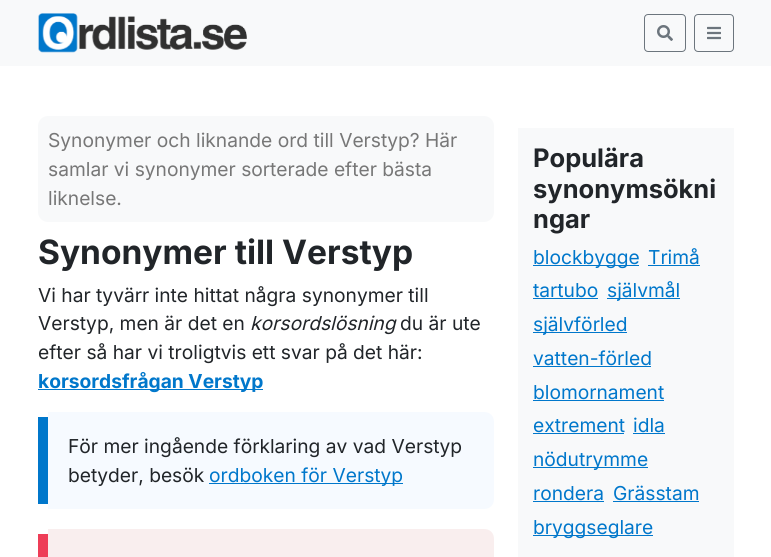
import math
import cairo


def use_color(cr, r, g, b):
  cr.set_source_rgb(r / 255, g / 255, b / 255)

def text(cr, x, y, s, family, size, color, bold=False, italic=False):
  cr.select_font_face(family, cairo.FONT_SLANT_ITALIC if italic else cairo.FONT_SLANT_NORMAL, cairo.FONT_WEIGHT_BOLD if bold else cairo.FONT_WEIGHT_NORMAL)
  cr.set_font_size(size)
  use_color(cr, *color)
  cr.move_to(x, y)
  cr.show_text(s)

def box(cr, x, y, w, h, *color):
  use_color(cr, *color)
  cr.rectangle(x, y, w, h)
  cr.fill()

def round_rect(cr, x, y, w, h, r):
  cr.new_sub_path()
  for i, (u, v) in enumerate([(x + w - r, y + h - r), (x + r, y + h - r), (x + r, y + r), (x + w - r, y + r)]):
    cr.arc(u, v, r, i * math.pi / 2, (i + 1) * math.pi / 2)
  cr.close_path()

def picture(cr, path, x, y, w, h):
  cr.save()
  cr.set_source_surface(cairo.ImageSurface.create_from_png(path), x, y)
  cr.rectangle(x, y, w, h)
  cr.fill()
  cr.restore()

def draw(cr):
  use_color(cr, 255, 255, 255)
  cr.paint()
  box(cr, 0, 0, 771, 66, 248, 249, 250)
  picture(cr, "img_01.png", 38, 13, 209, 40)
  round_rect(cr, 644.5, 14.5, 41, 37, 3.5)
  use_color(cr, 108, 117, 125)
  cr.set_line_width(1)
  cr.stroke()
  picture(cr, "img_02.png", 657, 25, 16, 16)
  round_rect(cr, 694.5, 14.5, 39, 37, 3.5)
  cr.stroke()
  picture(cr, "img_03.png", 707, 26, 14, 14)
  use_color(cr, 248, 249, 250)
  round_rect(cr, 38, 116, 456, 106, 10)
  cr.fill()
  box(cr, 38, 389, 225, 1, 0, 119, 203)
  use_color(cr, 246, 250, 255)
  cr.new_path()
  cr.move_to(48, 412)
  cr.line_to(484, 412)
  cr.curve_to(490, 412, 494, 416, 494, 422)
  cr.line_to(494, 499)
  cr.curve_to(494, 505, 490, 509, 484, 509)
  cr.line_to(48, 509)
  cr.close_path()
  cr.fill()
  box(cr, 38, 417, 10, 87, 0, 119, 203)
  box(cr, 209, 483, 194, 1, 0, 119, 203)
  use_color(cr, 249, 238, 238)
  cr.new_path()
  cr.move_to(48, 529)
  cr.line_to(484, 529)
  cr.curve_to(490, 529, 494, 533, 494, 539)
  cr.line_to(494, 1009)
  cr.curve_to(494, 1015, 490, 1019, 484, 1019)
  cr.line_to(48, 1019)
  cr.close_path()
  cr.fill()
  box(cr, 38, 534, 10, 23, 238, 61, 87)
  box(cr, 518, 128, 216, 429, 248, 249, 250)
  box(cr, 533, 265, 106, 1, 0, 119, 203)
  box(cr, 648, 265, 52, 1, 0, 119, 203)
  box(cr, 533, 298, 65, 1, 0, 119, 203)
  box(cr, 607, 298, 73, 1, 0, 119, 203)
  box(cr, 533, 332, 94, 1, 0, 119, 203)
  box(cr, 533, 366, 118, 1, 0, 119, 203)
  box(cr, 533, 400, 131, 1, 0, 119, 203)
  box(cr, 533, 433, 91, 1, 0, 119, 203)
  box(cr, 633, 433, 32, 1, 0, 119, 203)
  box(cr, 533, 467, 115, 1, 0, 119, 203)
  box(cr, 533, 501, 71, 1, 0, 119, 203)
  box(cr, 613, 501, 86, 1, 0, 119, 203)
  box(cr, 533, 535, 120, 1, 0, 119, 203)
  text(cr, 48, 147, "Synonymer och liknande ord till Verstyp? Här", "Inter", 19.2, (119, 119, 119))
  text(cr, 48, 176, "samlar vi synonymer sorterade efter bästa", "Inter", 19.2, (119, 119, 119))
  text(cr, 48, 205, "liknelse.", "Inter", 19.2, (119, 119, 119))
  text(cr, 38, 264, "Synonymer till Verstyp", "Inter", 33.5, (33, 37, 41), bold=True)
  text(cr, 38, 302, "Vi har tyvärr inte hittat några synonymer till", "Inter", 19.2, (33, 37, 41))
  text(cr, 38, 330, "Verstyp, men är det en", "Inter", 19.2, (33, 37, 41))
  text(cr, 250, 330, "korsordslösning", "Inter", 19.2, (33, 37, 41), italic=True)
  text(cr, 400, 330, "du är ute", "Inter", 19.2, (33, 37, 41))
  text(cr, 38, 359, "efter så har vi troligtvis ett svar på det här:", "Inter", 19.2, (33, 37, 41))
  text(cr, 38, 388, "korsordsfrågan Verstyp", "Inter", 19.2, (0, 119, 203), bold=True)
  text(cr, 68, 453, "För mer ingående förklaring av vad Verstyp", "Inter", 19.2, (33, 37, 41))
  text(cr, 68, 482, "betyder, besök", "Inter", 19.2, (33, 37, 41))
  text(cr, 209, 482, "ordboken för Verstyp", "Inter", 19.2, (0, 119, 203))
  text(cr, 533, 167, "Populära", "Inter", 25.5, (33, 37, 41), bold=True)
  text(cr, 533, 198, "synonymsökni", "Inter", 25.5, (33, 37, 41), bold=True)
  text(cr, 533, 228, "ngar", "Inter", 25.5, (33, 37, 41), bold=True)
  text(cr, 533, 264, "blockbygge", "Inter", 19.2, (0, 119, 203))
  text(cr, 648, 264, "Trimå", "Inter", 19.2, (0, 119, 203))
  text(cr, 533, 297, "tartubo", "Inter", 19.2, (0, 119, 203))
  text(cr, 607, 297, "självmål", "Inter", 19.2, (0, 119, 203))
  text(cr, 533, 331, "självförled", "Inter", 19.2, (0, 119, 203))
  text(cr, 533, 365, "vatten-förled", "Inter", 19.2, (0, 119, 203))
  text(cr, 533, 399, "blomornament", "Inter", 19.2, (0, 119, 203))
  text(cr, 533, 432, "extrement", "Inter", 19.2, (0, 119, 203))
  text(cr, 633, 432, "idla", "Inter", 19.2, (0, 119, 203))
  text(cr, 533, 466, "nödutrymme", "Inter", 19.2, (0, 119, 203))
  text(cr, 533, 500, "rondera", "Inter", 19.2, (0, 119, 203))
  text(cr, 613, 500, "Grässtam", "Inter", 19.2, (0, 119, 203))
  text(cr, 533, 534, "bryggseglare", "Inter", 19.2, (0, 119, 203))


surface = cairo.ImageSurface(cairo.FORMAT_RGB24, 771, 557)
cr = cairo.Context(surface)
options = cairo.FontOptions()
options.set_hint_metrics(cairo.HINT_METRICS_OFF)
options.set_hint_style(cairo.HINT_STYLE_NONE)
cr.set_font_options(options)
cr.set_miter_limit(4)
draw(cr)
surface.write_to_png("out.png")
